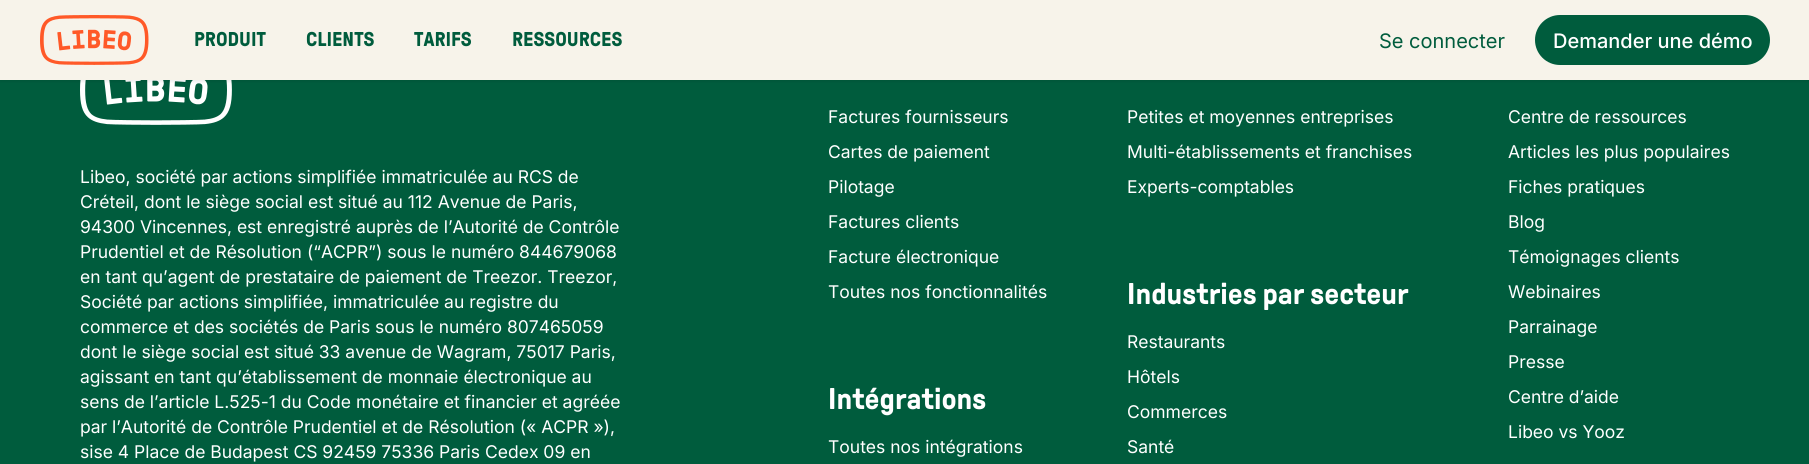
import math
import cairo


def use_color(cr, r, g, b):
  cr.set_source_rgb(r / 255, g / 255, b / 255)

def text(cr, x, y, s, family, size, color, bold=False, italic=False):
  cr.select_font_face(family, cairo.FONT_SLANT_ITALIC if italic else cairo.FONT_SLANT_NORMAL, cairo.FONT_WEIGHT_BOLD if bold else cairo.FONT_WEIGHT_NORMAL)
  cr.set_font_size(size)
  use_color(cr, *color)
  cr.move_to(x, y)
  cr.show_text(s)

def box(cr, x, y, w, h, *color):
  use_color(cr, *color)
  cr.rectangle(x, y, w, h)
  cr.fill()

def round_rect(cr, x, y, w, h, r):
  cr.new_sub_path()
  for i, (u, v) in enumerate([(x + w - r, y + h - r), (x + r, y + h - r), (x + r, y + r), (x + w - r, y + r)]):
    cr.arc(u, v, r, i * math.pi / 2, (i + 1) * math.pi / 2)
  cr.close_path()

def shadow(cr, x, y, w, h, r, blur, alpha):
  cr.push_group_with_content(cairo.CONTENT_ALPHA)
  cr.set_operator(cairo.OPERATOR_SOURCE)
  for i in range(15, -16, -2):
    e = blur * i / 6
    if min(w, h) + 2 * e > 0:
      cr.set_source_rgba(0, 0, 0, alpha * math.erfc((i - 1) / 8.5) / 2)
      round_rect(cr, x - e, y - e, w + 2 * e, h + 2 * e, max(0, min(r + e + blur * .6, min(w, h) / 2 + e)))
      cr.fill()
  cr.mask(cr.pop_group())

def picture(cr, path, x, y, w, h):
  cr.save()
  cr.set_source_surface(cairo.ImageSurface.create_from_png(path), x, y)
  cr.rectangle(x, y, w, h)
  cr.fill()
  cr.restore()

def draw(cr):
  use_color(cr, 0, 92, 61)
  cr.paint()
  box(cr, 0, 0, 1809, 80, 247, 243, 234)
  picture(cr, "img_02.png", 80, 80, 152, 45)
  cr.save()
  cr.rectangle(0, 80, 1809, 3)
  cr.clip()
  use_color(cr, 0, 0, 0)
  shadow(cr, 0, 1, 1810, 80, 0, 2, 0.1)
  cr.restore()
  picture(cr, "img_01.png", 40, 15, 109, 50)
  use_color(cr, 0, 92, 61)
  round_rect(cr, 1535, 15, 235, 50, 25)
  cr.fill()
  text(cr, 194, 46, "PRODUIT", "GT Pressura", 20, (0, 92, 61), bold=True)
  text(cr, 306, 46, "CLIENTS", "GT Pressura", 20, (0, 92, 61), bold=True)
  text(cr, 414, 46, "TARIFS", "GT Pressura", 20, (0, 92, 61), bold=True)
  text(cr, 512, 46, "RESSOURCES", "GT Pressura", 20, (0, 92, 61), bold=True)
  text(cr, 1379, 48, "Se connecter", "Inter", 20, (0, 92, 61))
  text(cr, 1553, 48, "Demander une démo", "Inter Medium", 20, (255, 255, 255))
  text(cr, 80, 183, "Libeo, société par actions simplifiée immatriculée au RCS de", "Inter", 17.5, (255, 255, 255))
  text(cr, 80, 208, "Créteil, dont le siège social est situé au 112 Avenue de Paris,", "Inter", 17.5, (255, 255, 255))
  text(cr, 80, 233, "94300 Vincennes, est enregistré auprès de l’Autorité de Contrôle", "Inter", 17.5, (255, 255, 255))
  text(cr, 80, 258, "Prudentiel et de Résolution (“ACPR”) sous le numéro 844679068", "Inter", 17.5, (255, 255, 255))
  text(cr, 80, 283, "en tant qu’agent de prestataire de paiement de Treezor. Treezor,", "Inter", 17.5, (255, 255, 255))
  text(cr, 80, 308, "Société par actions simplifiée, immatriculée au registre du", "Inter", 17.5, (255, 255, 255))
  text(cr, 80, 333, "commerce et des sociétés de Paris sous le numéro 807465059", "Inter", 17.5, (255, 255, 255))
  text(cr, 80, 358, "dont le siège social est situé 33 avenue de Wagram, 75017 Paris,", "Inter", 17.5, (255, 255, 255))
  text(cr, 80, 383, "agissant en tant qu’établissement de monnaie électronique au", "Inter", 17.5, (255, 255, 255))
  text(cr, 80, 408, "sens de l’article L.525-1 du Code monétaire et financier et agréée", "Inter", 17.5, (255, 255, 255))
  text(cr, 80, 433, "par l’Autorité de Contrôle Prudentiel et de Résolution (« ACPR »),", "Inter", 17.5, (255, 255, 255))
  text(cr, 80, 458, "sise 4 Place de Budapest CS 92459 75336 Paris Cedex 09 en", "Inter", 17.5, (255, 255, 255))
  text(cr, 828, 123, "Factures fournisseurs", "Inter", 17.5, (255, 255, 255))
  text(cr, 828, 158, "Cartes de paiement", "Inter", 17.5, (255, 255, 255))
  text(cr, 828, 193, "Pilotage", "Inter", 17.5, (255, 255, 255))
  text(cr, 828, 228, "Factures clients", "Inter", 17.5, (255, 255, 255))
  text(cr, 828, 263, "Facture électronique", "Inter", 17.5, (255, 255, 255))
  text(cr, 828, 298, "Toutes nos fonctionnalités", "Inter", 17.5, (255, 255, 255))
  text(cr, 828, 409, "Intégrations", "GT Pressura", 30, (255, 255, 255), bold=True)
  text(cr, 828, 453, "Toutes nos intégrations", "Inter", 17.5, (255, 255, 255))
  text(cr, 1127, 123, "Petites et moyennes entreprises", "Inter", 17.5, (255, 255, 255))
  text(cr, 1127, 158, "Multi-établissements et franchises", "Inter", 17.5, (255, 255, 255))
  text(cr, 1127, 193, "Experts-comptables", "Inter", 17.5, (255, 255, 255))
  text(cr, 1127, 304, "Industries par secteur", "GT Pressura", 30, (255, 255, 255), bold=True)
  text(cr, 1127, 348, "Restaurants", "Inter", 17.5, (255, 255, 255))
  text(cr, 1127, 383, "Hôtels", "Inter", 17.5, (255, 255, 255))
  text(cr, 1127, 418, "Commerces", "Inter", 17.5, (255, 255, 255))
  text(cr, 1127, 453, "Santé", "Inter", 17.5, (255, 255, 255))
  text(cr, 1508, 123, "Centre de ressources", "Inter", 17.5, (255, 255, 255))
  text(cr, 1508, 158, "Articles les plus populaires", "Inter", 17.5, (255, 255, 255))
  text(cr, 1508, 193, "Fiches pratiques", "Inter", 17.5, (255, 255, 255))
  text(cr, 1508, 228, "Blog", "Inter", 17.5, (255, 255, 255))
  text(cr, 1508, 263, "Témoignages clients", "Inter", 17.5, (255, 255, 255))
  text(cr, 1508, 298, "Webinaires", "Inter", 17.5, (255, 255, 255))
  text(cr, 1508, 333, "Parrainage", "Inter", 17.5, (255, 255, 255))
  text(cr, 1508, 368, "Presse", "Inter", 17.5, (255, 255, 255))
  text(cr, 1508, 403, "Centre d’aide", "Inter", 17.5, (255, 255, 255))
  text(cr, 1508, 438, "Libeo vs Yooz", "Inter", 17.5, (255, 255, 255))


surface = cairo.ImageSurface(cairo.FORMAT_RGB24, 1809, 464)
cr = cairo.Context(surface)
options = cairo.FontOptions()
options.set_hint_metrics(cairo.HINT_METRICS_OFF)
options.set_hint_style(cairo.HINT_STYLE_NONE)
cr.set_font_options(options)
cr.set_miter_limit(4)
draw(cr)
surface.write_to_png("out.png")
